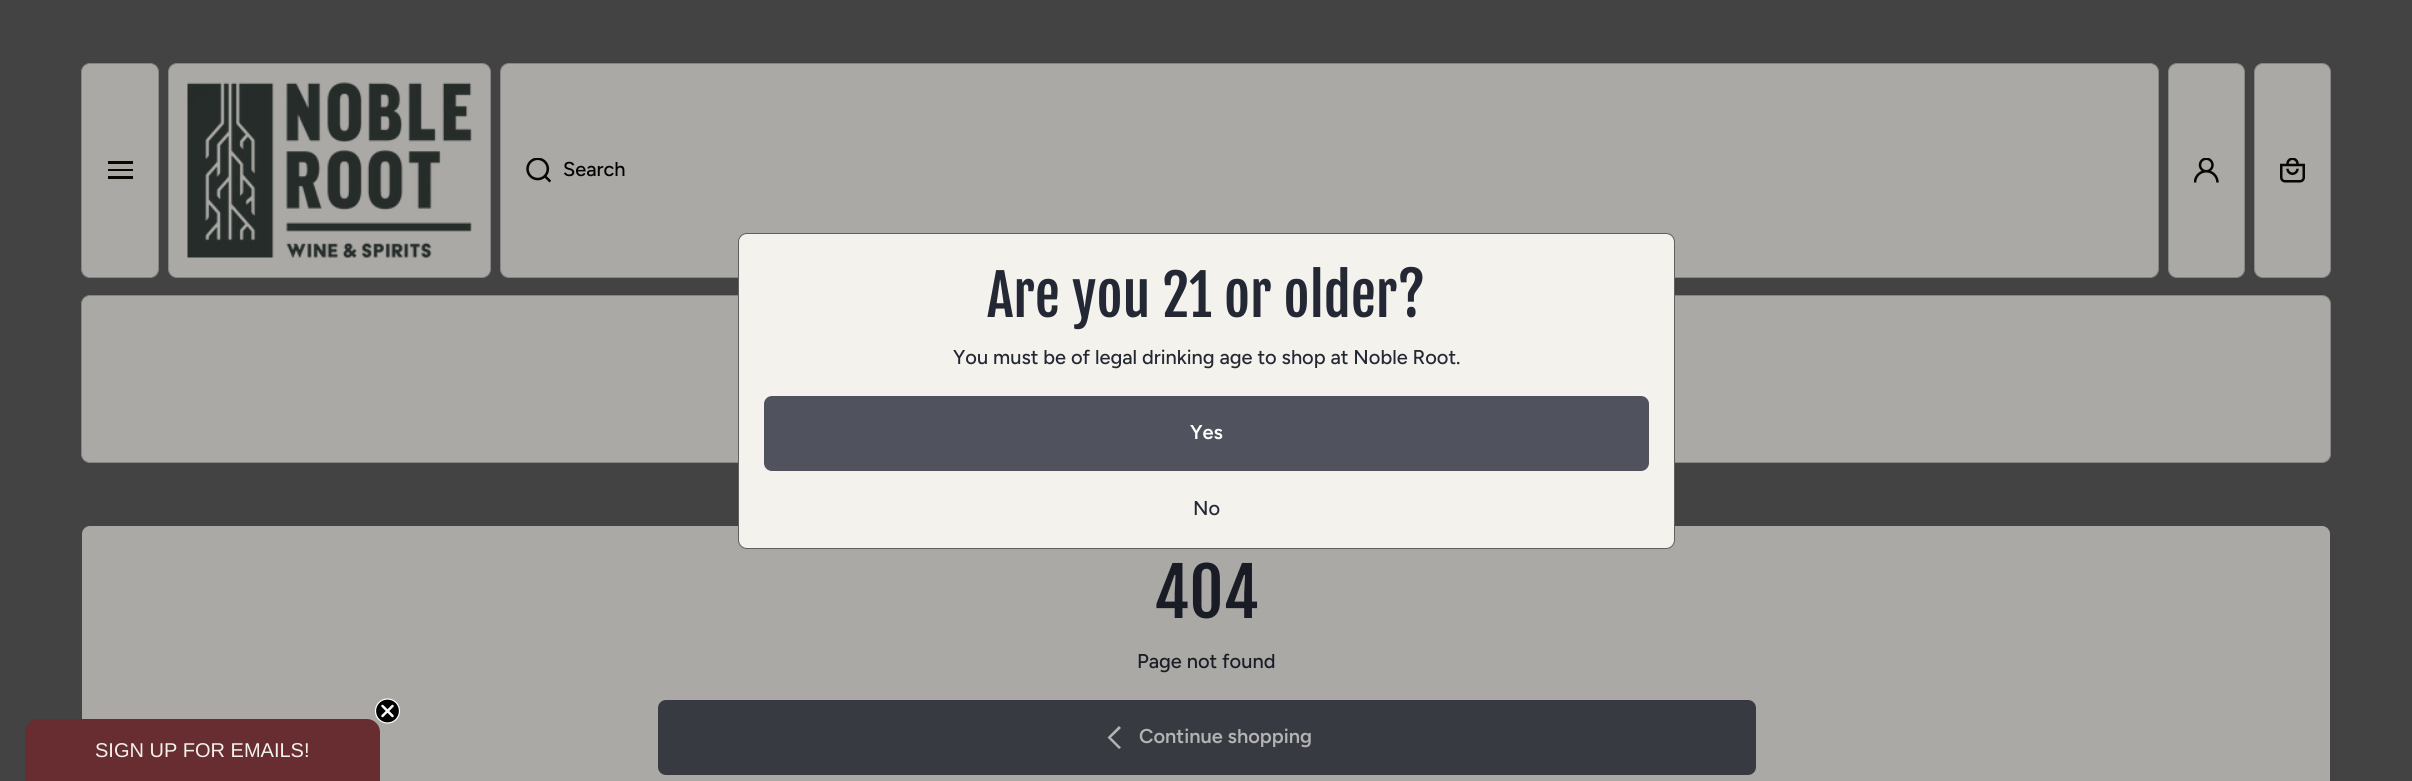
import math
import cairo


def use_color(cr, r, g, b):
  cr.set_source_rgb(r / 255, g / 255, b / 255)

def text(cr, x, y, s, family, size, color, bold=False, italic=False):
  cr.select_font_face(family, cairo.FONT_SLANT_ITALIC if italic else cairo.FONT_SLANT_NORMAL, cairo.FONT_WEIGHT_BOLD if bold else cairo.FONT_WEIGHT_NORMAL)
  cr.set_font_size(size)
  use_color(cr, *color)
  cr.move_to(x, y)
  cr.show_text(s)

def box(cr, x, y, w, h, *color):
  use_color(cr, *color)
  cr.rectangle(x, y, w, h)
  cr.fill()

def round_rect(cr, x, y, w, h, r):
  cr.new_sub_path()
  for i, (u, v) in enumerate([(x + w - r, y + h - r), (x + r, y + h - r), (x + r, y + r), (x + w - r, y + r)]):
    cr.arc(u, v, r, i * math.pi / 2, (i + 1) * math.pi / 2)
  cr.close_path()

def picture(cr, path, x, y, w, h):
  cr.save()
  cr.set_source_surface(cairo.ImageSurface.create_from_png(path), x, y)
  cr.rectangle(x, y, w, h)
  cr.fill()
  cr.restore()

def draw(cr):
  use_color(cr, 66, 67, 66)
  cr.paint()
  use_color(cr, 170, 169, 165)
  round_rect(cr, 81.5, 63.5, 77, 214, 8.5)
  cr.fill_preserve()
  use_color(cr, 134, 134, 134)
  cr.set_line_width(1)
  cr.stroke()
  box(cr, 108, 161, 25, 3, 10, 7, 1)
  box(cr, 108, 169, 25, 2, 10, 7, 1)
  box(cr, 108, 176, 25, 3, 10, 7, 1)
  use_color(cr, 170, 169, 165)
  round_rect(cr, 168.5, 63.5, 322, 214, 8.5)
  cr.fill_preserve()
  use_color(cr, 134, 134, 134)
  cr.stroke()
  picture(cr, "img_01.png", 187, 82, 285, 176)
  use_color(cr, 170, 169, 165)
  round_rect(cr, 500.5, 63.5, 1658, 214, 8.5)
  cr.fill_preserve()
  use_color(cr, 134, 134, 134)
  cr.stroke()
  picture(cr, "img_02.png", 526, 158, 25, 25)
  use_color(cr, 170, 169, 165)
  round_rect(cr, 2168.5, 63.5, 76, 214, 8.5)
  cr.fill_preserve()
  use_color(cr, 134, 134, 134)
  cr.stroke()
  picture(cr, "img_03.png", 2194, 158, 25, 25)
  use_color(cr, 170, 169, 165)
  round_rect(cr, 2254.5, 63.5, 76, 214, 8.5)
  cr.fill_preserve()
  use_color(cr, 134, 134, 134)
  cr.stroke()
  picture(cr, "img_04.png", 2280, 158, 25, 25)
  use_color(cr, 170, 169, 165)
  round_rect(cr, 81.5, 295.5, 2249, 167, 8.5)
  cr.fill_preserve()
  use_color(cr, 134, 134, 134)
  cr.stroke()
  use_color(cr, 170, 169, 165)
  round_rect(cr, 81.5, 525.5, 2249, 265, 8.5)
  cr.fill_preserve()
  use_color(cr, 66, 67, 66)
  cr.stroke()
  use_color(cr, 243, 242, 236)
  round_rect(cr, 738.5, 233.5, 936, 315, 8.5)
  cr.fill_preserve()
  use_color(cr, 94, 95, 94)
  cr.stroke()
  use_color(cr, 80, 83, 93)
  round_rect(cr, 764, 396, 885, 75, 8)
  cr.fill()
  use_color(cr, 56, 58, 65)
  round_rect(cr, 658, 700, 1098, 75, 8)
  cr.fill()
  use_color(cr, 179, 179, 179)
  cr.set_fill_rule(cairo.FILL_RULE_EVEN_ODD)
  cr.new_path()
  cr.move_to(1119, 726)
  cr.line_to(1121, 728)
  cr.line_to(1111, 737.5)
  cr.line_to(1121, 747.5)
  cr.line_to(1119, 749)
  cr.line_to(1107.5, 737.5)
  cr.close_path()
  cr.fill()
  use_color(cr, 103, 45, 49)
  cr.new_path()
  cr.move_to(38, 719)
  cr.line_to(367, 719)
  cr.curve_to(374, 719, 380, 725, 380, 732)
  cr.line_to(380, 781)
  cr.line_to(25, 781)
  cr.line_to(25, 732)
  cr.curve_to(25, 725, 31, 719, 38, 719)
  cr.close_path()
  cr.fill()
  use_color(cr, 0, 0, 0)
  cr.arc(387.5, 711, 12, 0, 2 * math.pi)
  cr.fill_preserve()
  use_color(cr, 255, 255, 255)
  cr.set_line_width(1.2)
  cr.stroke()
  cr.new_path()
  cr.move_to(382.5, 706)
  cr.line_to(392.5, 716)
  cr.move_to(382.5, 716)
  cr.line_to(392.5, 706)
  cr.close_path()
  cr.set_line_width(2.5)
  cr.set_line_cap(cairo.LINE_CAP_ROUND)
  cr.set_line_join(cairo.LINE_JOIN_ROUND)
  cr.stroke()
  text(cr, 563, 176, "Search", "Figtree Medium", 20, (0, 0, 0))
  text(cr, 987, 317, "Are you 21 or older?", "Fjalla One", 56.25, (36, 40, 53))
  text(cr, 953, 364, "You must be of legal drinking age to shop at Noble Root.", "Figtree Medium", 20, (36, 40, 53))
  text(cr, 1190, 439, "Yes", "Figtree SemiBold", 20, (255, 255, 255))
  text(cr, 1193, 515, "No", "Figtree Medium", 20, (36, 40, 53))
  text(cr, 1154, 618, "404", "Fjalla One", 66, (25, 28, 37))
  text(cr, 1137, 668, "Page not found", "Figtree Medium", 20, (25, 28, 37))
  text(cr, 1139, 743, "Continue shopping", "Figtree SemiBold", 20, (179, 179, 179))
  text(cr, 95, 757, "SIGN UP FOR EMAILS!", "Liberation Sans", 20, (243, 242, 236))


surface = cairo.ImageSurface(cairo.FORMAT_RGB24, 2412, 781)
cr = cairo.Context(surface)
options = cairo.FontOptions()
options.set_hint_metrics(cairo.HINT_METRICS_OFF)
options.set_hint_style(cairo.HINT_STYLE_NONE)
cr.set_font_options(options)
cr.set_miter_limit(4)
draw(cr)
surface.write_to_png("out.png")
